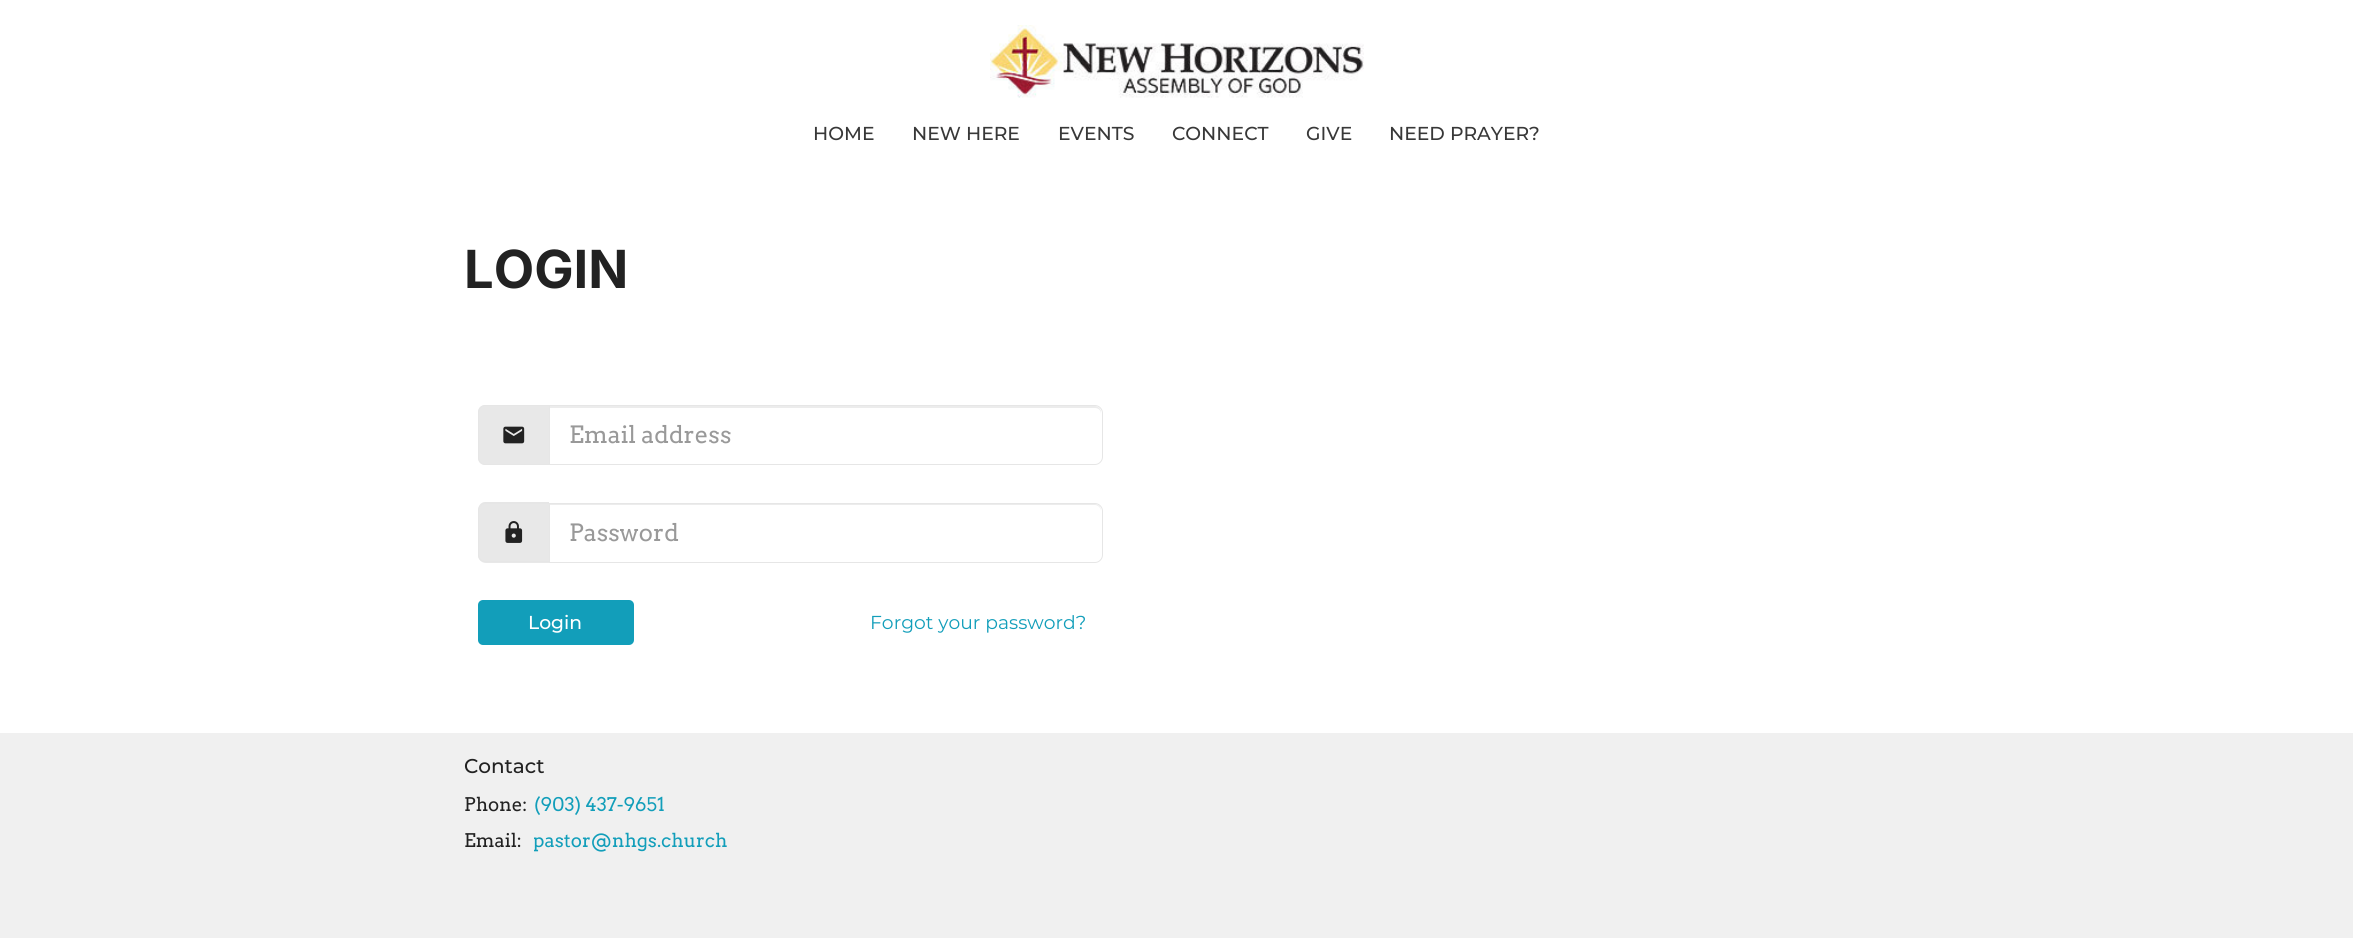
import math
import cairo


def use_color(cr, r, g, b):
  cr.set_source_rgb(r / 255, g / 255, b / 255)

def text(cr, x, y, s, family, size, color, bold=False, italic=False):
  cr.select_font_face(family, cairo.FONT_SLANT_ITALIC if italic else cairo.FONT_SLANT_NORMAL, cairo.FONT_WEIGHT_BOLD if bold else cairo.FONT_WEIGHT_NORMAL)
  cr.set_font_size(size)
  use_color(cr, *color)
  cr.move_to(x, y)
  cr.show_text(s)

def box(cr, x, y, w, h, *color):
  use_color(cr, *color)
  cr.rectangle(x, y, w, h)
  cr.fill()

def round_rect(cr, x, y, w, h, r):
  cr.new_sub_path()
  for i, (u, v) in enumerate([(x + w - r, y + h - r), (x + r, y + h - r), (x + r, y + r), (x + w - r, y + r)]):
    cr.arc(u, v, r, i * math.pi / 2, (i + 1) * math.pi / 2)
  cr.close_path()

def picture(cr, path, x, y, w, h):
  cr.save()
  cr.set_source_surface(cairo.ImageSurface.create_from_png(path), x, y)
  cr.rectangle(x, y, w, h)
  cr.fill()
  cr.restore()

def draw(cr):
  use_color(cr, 255, 255, 255)
  cr.paint()
  picture(cr, "img_01.png", 990, 25, 374, 73)
  use_color(cr, 232, 232, 232)
  cr.new_path()
  cr.move_to(486, 405)
  cr.line_to(549, 405)
  cr.line_to(549, 465)
  cr.line_to(486, 465)
  cr.curve_to(481.5, 465, 478, 461.5, 478, 457)
  cr.line_to(478, 413)
  cr.curve_to(478, 408.5, 481.5, 405, 486, 405)
  cr.close_path()
  cr.fill()
  use_color(cr, 230, 230, 230)
  cr.set_fill_rule(cairo.FILL_RULE_EVEN_ODD)
  cr.new_path()
  cr.move_to(485, 405)
  cr.line_to(549, 405)
  cr.line_to(549, 465)
  cr.line_to(485, 465)
  cr.curve_to(481, 465, 478, 462, 478, 458)
  cr.line_to(478, 412)
  cr.curve_to(478, 408, 481, 405, 485, 405)
  cr.close_path()
  cr.move_to(485, 406)
  cr.line_to(549, 406)
  cr.line_to(549, 464)
  cr.line_to(485, 464)
  cr.curve_to(482, 464, 479, 461, 479, 458)
  cr.line_to(479, 412)
  cr.curve_to(479, 409, 482, 406, 485, 406)
  cr.close_path()
  cr.fill()
  picture(cr, "img_02.png", 503, 426, 22, 18)
  use_color(cr, 236, 236, 236)
  cr.set_fill_rule(cairo.FILL_RULE_WINDING)
  cr.new_path()
  cr.move_to(550, 408)
  cr.line_to(1095, 408)
  cr.curve_to(1098, 408, 1101, 410, 1101, 414)
  cr.line_to(1101, 412)
  cr.curve_to(1101, 409, 1098, 406, 1095, 406)
  cr.line_to(550, 406)
  cr.close_path()
  cr.fill()
  cr.new_path()
  cr.move_to(549.5, 405.5)
  cr.line_to(1095, 405.5)
  cr.curve_to(1099, 405.5, 1102.5, 409, 1102.5, 413)
  cr.line_to(1102.5, 457)
  cr.curve_to(1102.5, 461, 1099, 464.5, 1095, 464.5)
  cr.line_to(549.5, 464.5)
  cr.close_path()
  use_color(cr, 230, 230, 230)
  cr.set_line_width(1)
  cr.stroke()
  use_color(cr, 232, 232, 232)
  cr.new_path()
  cr.move_to(486, 503)
  cr.line_to(549, 503)
  cr.line_to(549, 563)
  cr.line_to(486, 563)
  cr.curve_to(481.5, 563, 478, 559.5, 478, 555)
  cr.line_to(478, 511)
  cr.curve_to(478, 506.5, 481.5, 503, 486, 503)
  cr.close_path()
  cr.fill()
  use_color(cr, 230, 230, 230)
  cr.set_fill_rule(cairo.FILL_RULE_EVEN_ODD)
  cr.new_path()
  cr.move_to(485, 502)
  cr.line_to(549, 502)
  cr.line_to(549, 562)
  cr.line_to(485, 562)
  cr.curve_to(481, 562, 478, 559, 478, 555)
  cr.line_to(478, 510)
  cr.curve_to(478, 506, 481, 502, 485, 502)
  cr.close_path()
  cr.move_to(485, 504)
  cr.line_to(549, 504)
  cr.line_to(549, 561)
  cr.line_to(485, 561)
  cr.curve_to(482, 561, 479, 558, 479, 555)
  cr.line_to(479, 510)
  cr.curve_to(479, 507, 482, 504, 485, 504)
  cr.close_path()
  cr.fill()
  picture(cr, "img_03.png", 505, 521, 18, 22)
  use_color(cr, 236, 236, 236)
  cr.set_fill_rule(cairo.FILL_RULE_WINDING)
  cr.new_path()
  cr.move_to(550, 505)
  cr.line_to(1095, 505)
  cr.curve_to(1098, 505, 1101, 508, 1101, 511)
  cr.line_to(1101, 510)
  cr.curve_to(1101, 507, 1098, 504, 1095, 504)
  cr.line_to(550, 504)
  cr.close_path()
  cr.fill()
  cr.new_path()
  cr.move_to(549.5, 503.5)
  cr.line_to(1095, 503.5)
  cr.curve_to(1099, 503.5, 1102.5, 507, 1102.5, 511)
  cr.line_to(1102.5, 555)
  cr.curve_to(1102.5, 559, 1099, 562.5, 1095, 562.5)
  cr.line_to(549.5, 562.5)
  cr.close_path()
  use_color(cr, 230, 230, 230)
  cr.stroke()
  use_color(cr, 18, 158, 186)
  round_rect(cr, 478, 600, 156, 45, 5)
  cr.fill()
  box(cr, 0, 733, 2353, 205, 240, 240, 240)
  text(cr, 813, 140, "HOME", "Montserrat Medium", 18.75, (56, 56, 56))
  text(cr, 912, 140, "NEW HERE", "Montserrat Medium", 18.75, (56, 56, 56))
  text(cr, 1058, 140, "EVENTS", "Montserrat Medium", 18.75, (56, 56, 56))
  text(cr, 1172, 140, "CONNECT", "Montserrat Medium", 18.75, (56, 56, 56))
  text(cr, 1306, 140, "GIVE", "Montserrat Medium", 18.75, (56, 56, 56))
  text(cr, 1389, 140, "NEED PRAYER?", "Montserrat Medium", 18.75, (56, 56, 56))
  text(cr, 464, 288, "LOGIN", "Inter", 52.5, (34, 34, 34), bold=True)
  text(cr, 569, 443, "Email address", "Arvo", 23.75, (153, 153, 153))
  text(cr, 569, 541, "Password", "Arvo", 23.75, (153, 153, 153))
  text(cr, 528, 629, "Login", "Montserrat Medium", 18.75, (255, 255, 255))
  text(cr, 870, 629, "Forgot your password?", "Montserrat", 18.75, (18, 158, 186))
  text(cr, 464, 773, "Contact", "Montserrat Medium", 20, (34, 34, 34))
  text(cr, 464, 811, "Phone:", "Arvo", 18.75, (34, 34, 34))
  text(cr, 534, 811, "(903) 437-9651", "Arvo", 18.75, (18, 158, 186))
  text(cr, 464, 847, "Email:", "Arvo", 18.75, (34, 34, 34))
  cr.save()
  cr.rectangle(534, 826, 194, 30)
  cr.clip()
  text(cr, 533, 847, "pastor@nhgs.church", "Arvo", 18.75, (18, 158, 186))
  cr.restore()


surface = cairo.ImageSurface(cairo.FORMAT_RGB24, 2353, 938)
cr = cairo.Context(surface)
options = cairo.FontOptions()
options.set_hint_metrics(cairo.HINT_METRICS_OFF)
options.set_hint_style(cairo.HINT_STYLE_NONE)
cr.set_font_options(options)
cr.set_miter_limit(4)
draw(cr)
surface.write_to_png("out.png")
